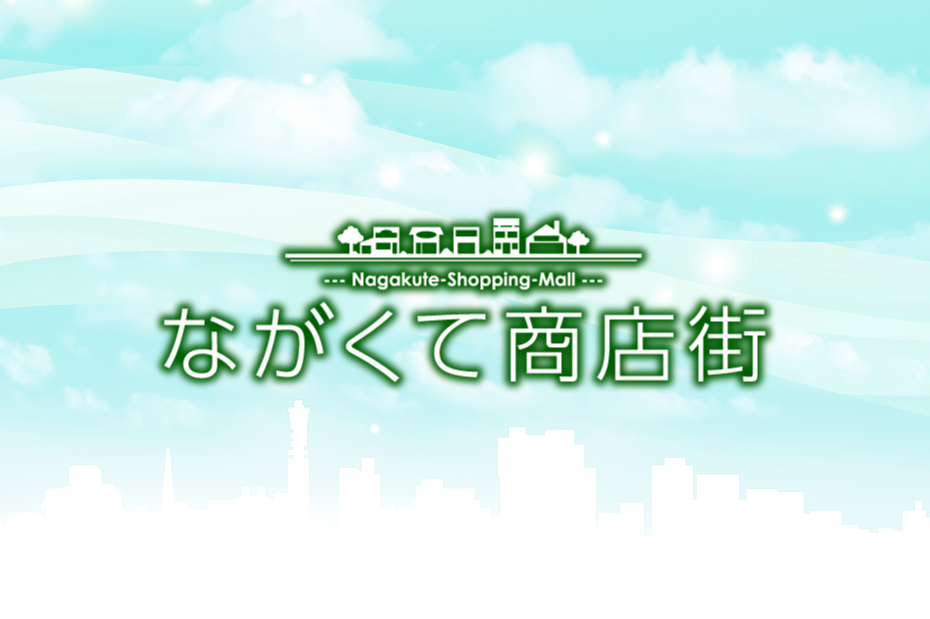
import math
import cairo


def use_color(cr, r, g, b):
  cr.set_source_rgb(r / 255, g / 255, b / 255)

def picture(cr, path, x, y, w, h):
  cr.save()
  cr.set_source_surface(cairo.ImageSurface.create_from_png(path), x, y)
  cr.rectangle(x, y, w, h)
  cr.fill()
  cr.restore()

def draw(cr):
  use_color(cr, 255, 255, 255)
  cr.paint()
  picture(cr, "img_01.png", 0, 0, 930, 537)
  picture(cr, "img_02.png", 153, 207, 624, 186)


surface = cairo.ImageSurface(cairo.FORMAT_RGB24, 930, 619)
cr = cairo.Context(surface)
options = cairo.FontOptions()
options.set_hint_metrics(cairo.HINT_METRICS_OFF)
options.set_hint_style(cairo.HINT_STYLE_NONE)
cr.set_font_options(options)
cr.set_miter_limit(4)
draw(cr)
surface.write_to_png("out.png")
